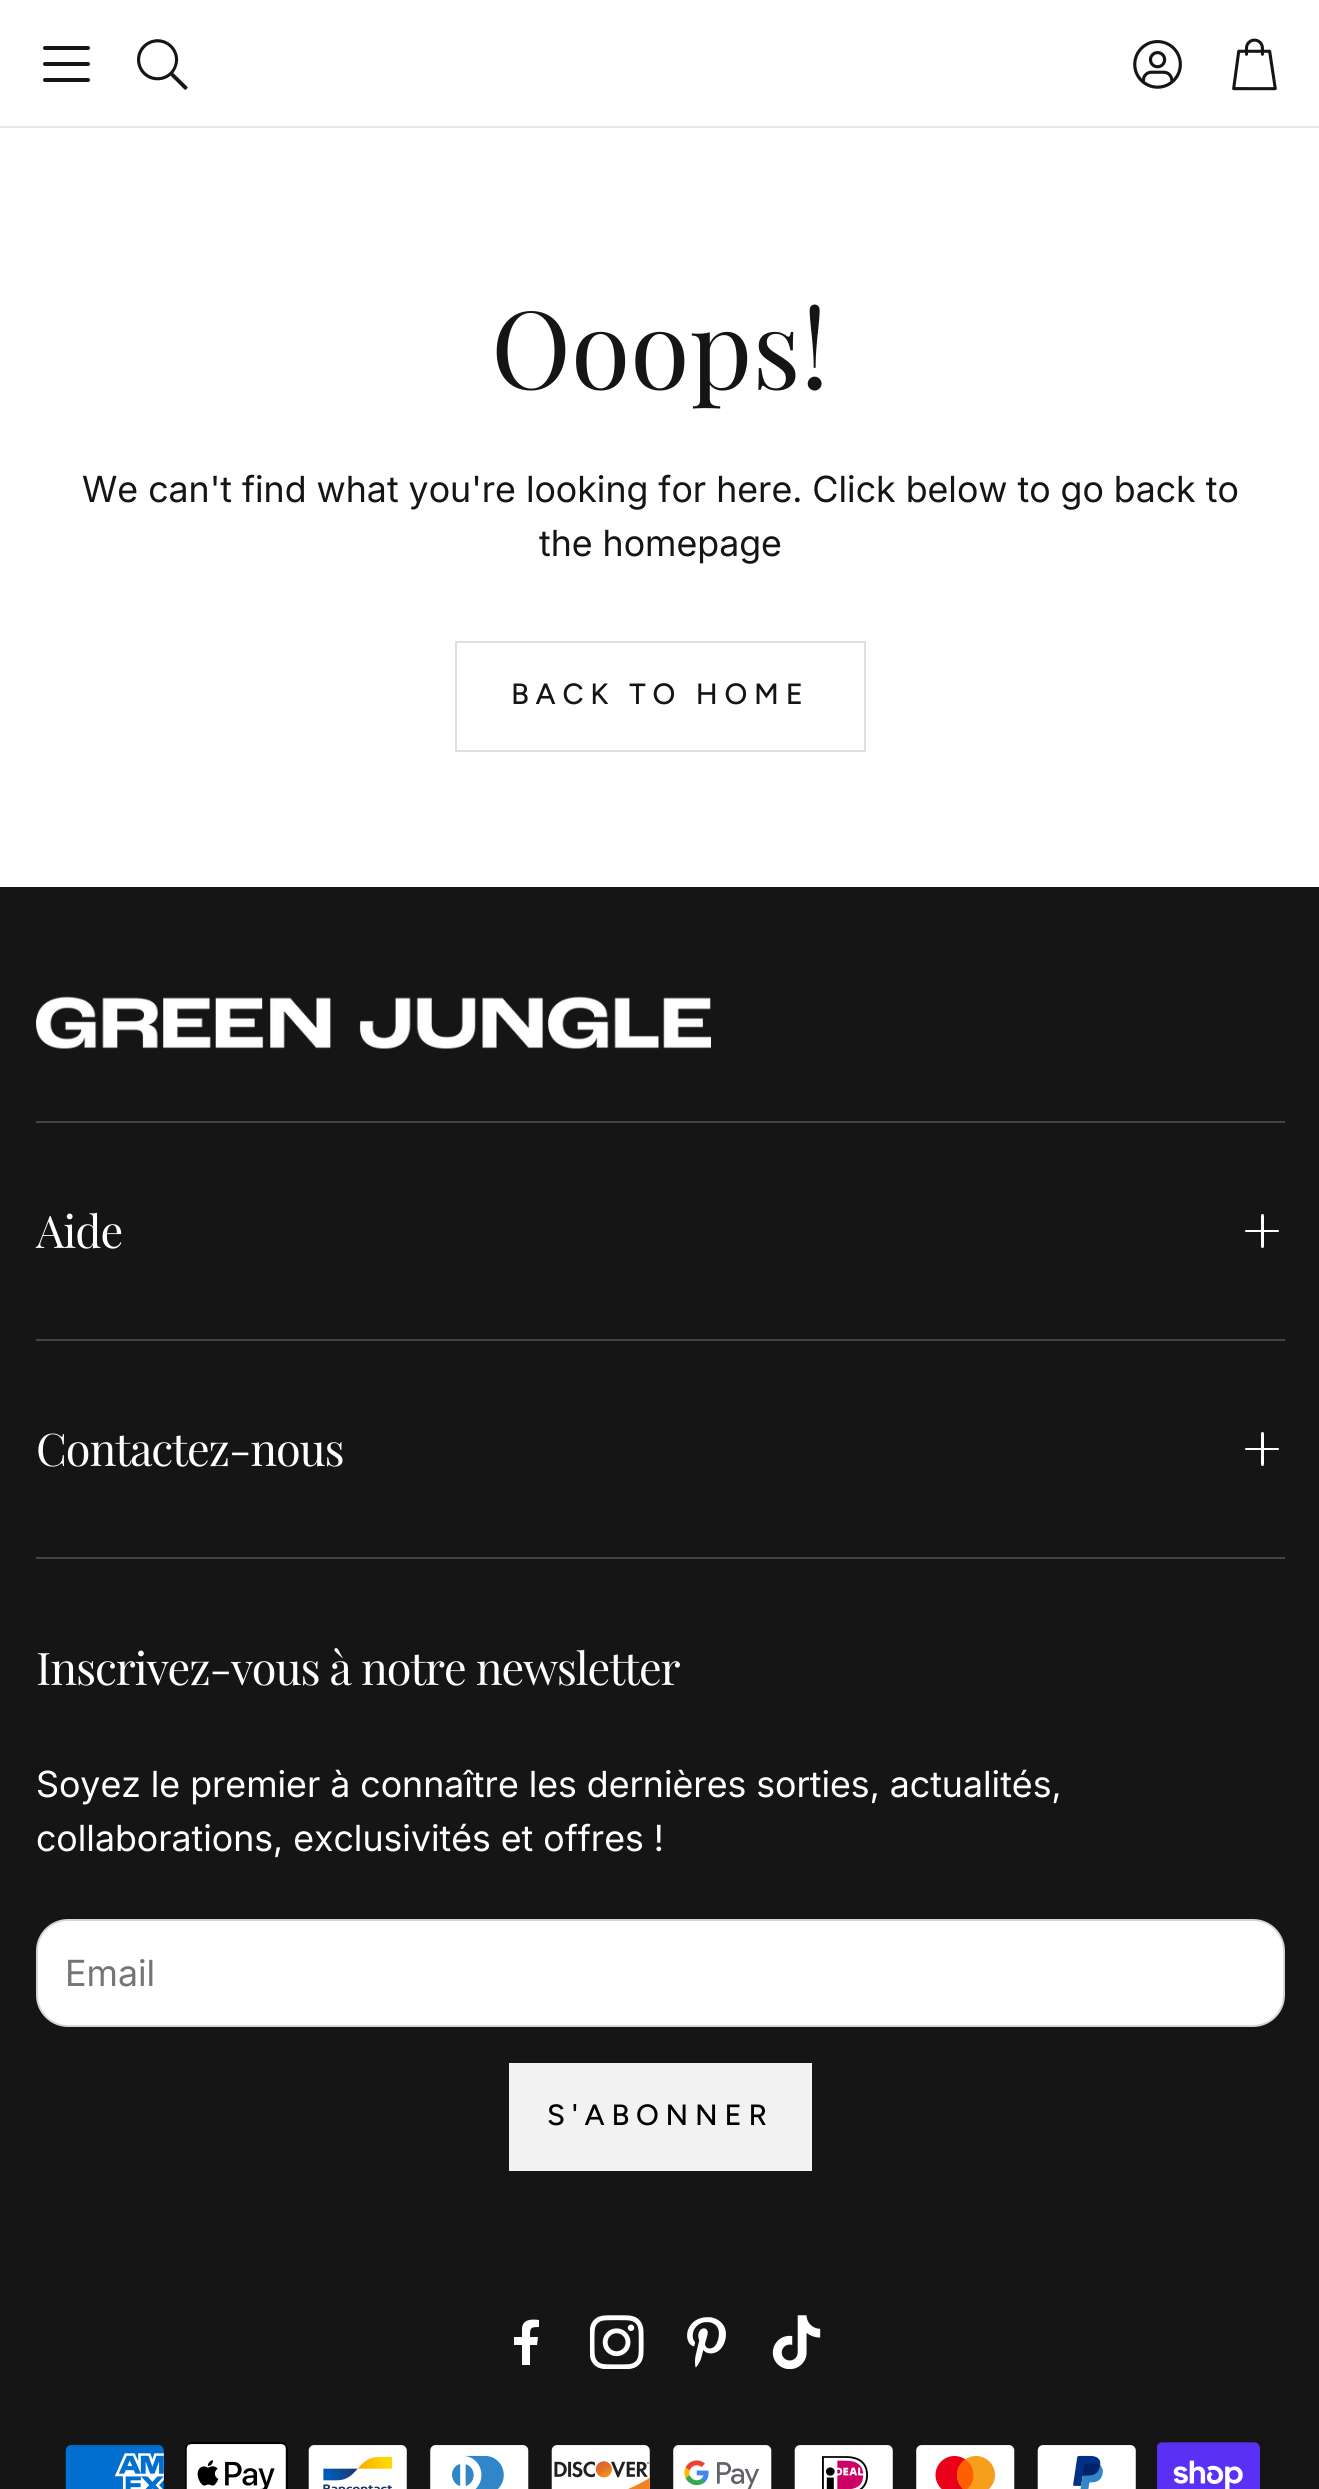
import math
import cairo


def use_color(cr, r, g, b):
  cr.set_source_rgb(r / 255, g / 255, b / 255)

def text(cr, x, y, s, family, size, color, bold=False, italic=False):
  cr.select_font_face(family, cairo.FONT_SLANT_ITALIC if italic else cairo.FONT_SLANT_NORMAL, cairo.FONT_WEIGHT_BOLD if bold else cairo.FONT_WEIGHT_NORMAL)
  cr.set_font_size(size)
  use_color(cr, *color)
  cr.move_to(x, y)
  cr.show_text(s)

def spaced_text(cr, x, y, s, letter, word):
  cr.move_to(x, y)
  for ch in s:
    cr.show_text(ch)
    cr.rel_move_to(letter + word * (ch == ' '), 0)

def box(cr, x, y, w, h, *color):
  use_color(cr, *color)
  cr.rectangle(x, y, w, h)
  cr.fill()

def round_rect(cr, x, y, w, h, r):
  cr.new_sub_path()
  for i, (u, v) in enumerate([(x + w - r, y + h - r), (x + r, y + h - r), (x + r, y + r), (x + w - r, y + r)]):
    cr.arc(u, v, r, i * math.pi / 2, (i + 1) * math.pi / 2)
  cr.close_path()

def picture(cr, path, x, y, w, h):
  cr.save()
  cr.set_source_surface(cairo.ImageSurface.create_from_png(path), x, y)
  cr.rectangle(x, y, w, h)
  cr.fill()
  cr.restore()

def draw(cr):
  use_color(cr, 255, 255, 255)
  cr.paint()
  box(cr, 0, 126, 1319, 2, 231, 231, 231)
  use_color(cr, 21, 21, 21)
  round_rect(cr, 43, 46, 47, 4, 2)
  cr.fill()
  round_rect(cr, 43, 62, 47, 4, 2)
  cr.fill()
  round_rect(cr, 43, 78, 47, 4, 2)
  cr.fill()
  picture(cr, "img_01.png", 137, 39, 51, 51)
  picture(cr, "img_02.png", 1133, 40, 49, 49)
  picture(cr, "img_03.png", 1232, 38, 45, 53)
  cr.rectangle(456, 642, 409, 109)
  use_color(cr, 223, 223, 223)
  cr.stroke()
  box(cr, 0, 887, 1319, 1602, 21, 21, 21)
  picture(cr, "img_04.png", 36, 996, 675, 53)
  box(cr, 36, 1121, 1249, 2, 68, 68, 68)
  use_color(cr, 255, 255, 255)
  round_rect(cr, 1245, 1230, 34, 2, 1)
  cr.fill()
  round_rect(cr, 1261, 1214, 3, 34, 1.5)
  cr.fill()
  box(cr, 36, 1339, 1249, 2, 68, 68, 68)
  use_color(cr, 255, 255, 255)
  round_rect(cr, 1245, 1448, 34, 2, 1)
  cr.fill()
  round_rect(cr, 1261, 1432, 3, 34, 1.5)
  cr.fill()
  box(cr, 36, 1557, 1249, 2, 68, 68, 68)
  use_color(cr, 255, 255, 255)
  round_rect(cr, 37, 1920, 1247, 106, 31)
  cr.fill_preserve()
  use_color(cr, 214, 214, 214)
  cr.stroke()
  box(cr, 509, 2063, 303, 108, 242, 242, 242)
  use_color(cr, 255, 255, 255)
  cr.new_path()
  cr.move_to(537, 2345)
  cr.line_to(538, 2337)
  cr.line_to(530, 2337)
  cr.curve_to(530, 2328, 530, 2327, 539, 2327)
  cr.line_to(539, 2320)
  cr.curve_to(532, 2319, 523, 2319, 522, 2328)
  cr.line_to(522, 2337)
  cr.line_to(514, 2337)
  cr.line_to(514, 2345)
  cr.line_to(522, 2345)
  cr.line_to(522, 2365)
  cr.line_to(530, 2365)
  cr.line_to(530, 2345)
  cr.close_path()
  cr.fill()
  picture(cr, "img_05.png", 590, 2315, 54, 54)
  picture(cr, "img_06.png", 687, 2317, 39, 51)
  picture(cr, "img_07.png", 772, 2315, 49, 54)
  picture(cr, "img_08.png", 65, 2445, 99, 44)
  picture(cr, "img_09.png", 185, 2442, 103, 47)
  picture(cr, "img_10.png", 308, 2445, 99, 44)
  picture(cr, "img_11.png", 430, 2445, 99, 44)
  picture(cr, "img_12.png", 551, 2445, 99, 44)
  picture(cr, "img_13.png", 673, 2445, 99, 44)
  picture(cr, "img_14.png", 794, 2445, 99, 44)
  picture(cr, "img_15.png", 916, 2445, 99, 44)
  picture(cr, "img_16.png", 1037, 2445, 99, 44)
  picture(cr, "img_17.png", 1157, 2442, 103, 47)
  text(cr, 491, 389, "Ooops!", "Playfair Display", 108, (21, 21, 21))
  text(cr, 82, 502, "We can't find what you're looking for here. Click below to go back to", "Inter", 36, (21, 21, 21))
  text(cr, 539, 556, "the homepage", "Inter", 36, (21, 21, 21))
  cr.select_font_face("Figtree Medium")
  cr.set_font_size(29.25)
  spaced_text(cr, 511, 704, "BACK TO HOME", 6.75, 0)
  cr.select_font_face("Playfair Display")
  cr.set_font_size(45)
  use_color(cr, 255, 255, 255)
  spaced_text(cr, 36, 1248, "Aide", -1.1, 0)
  spaced_text(cr, 36, 1466, "Contactez-nous", -1.1, 0)
  spaced_text(cr, 36, 1685, "Inscrivez-vous à notre newsletter", -1.1, 0)
  text(cr, 36, 1797, "Soyez le premier à connaître les dernières sorties, actualités,", "Inter", 36, (255, 255, 255))
  text(cr, 36, 1851, "collaborations, exclusivités et offres !", "Inter", 36, (255, 255, 255))
  text(cr, 65, 1986, "Email", "Inter", 36, (117, 117, 117))
  cr.select_font_face("Figtree Medium")
  cr.set_font_size(29.25)
  use_color(cr, 0, 0, 0)
  spaced_text(cr, 547, 2125, "S'ABONNER", 6.75, 0)


surface = cairo.ImageSurface(cairo.FORMAT_RGB24, 1319, 2489)
cr = cairo.Context(surface)
options = cairo.FontOptions()
options.set_hint_metrics(cairo.HINT_METRICS_OFF)
options.set_hint_style(cairo.HINT_STYLE_NONE)
cr.set_font_options(options)
cr.set_miter_limit(4)
draw(cr)
surface.write_to_png("out.png")
